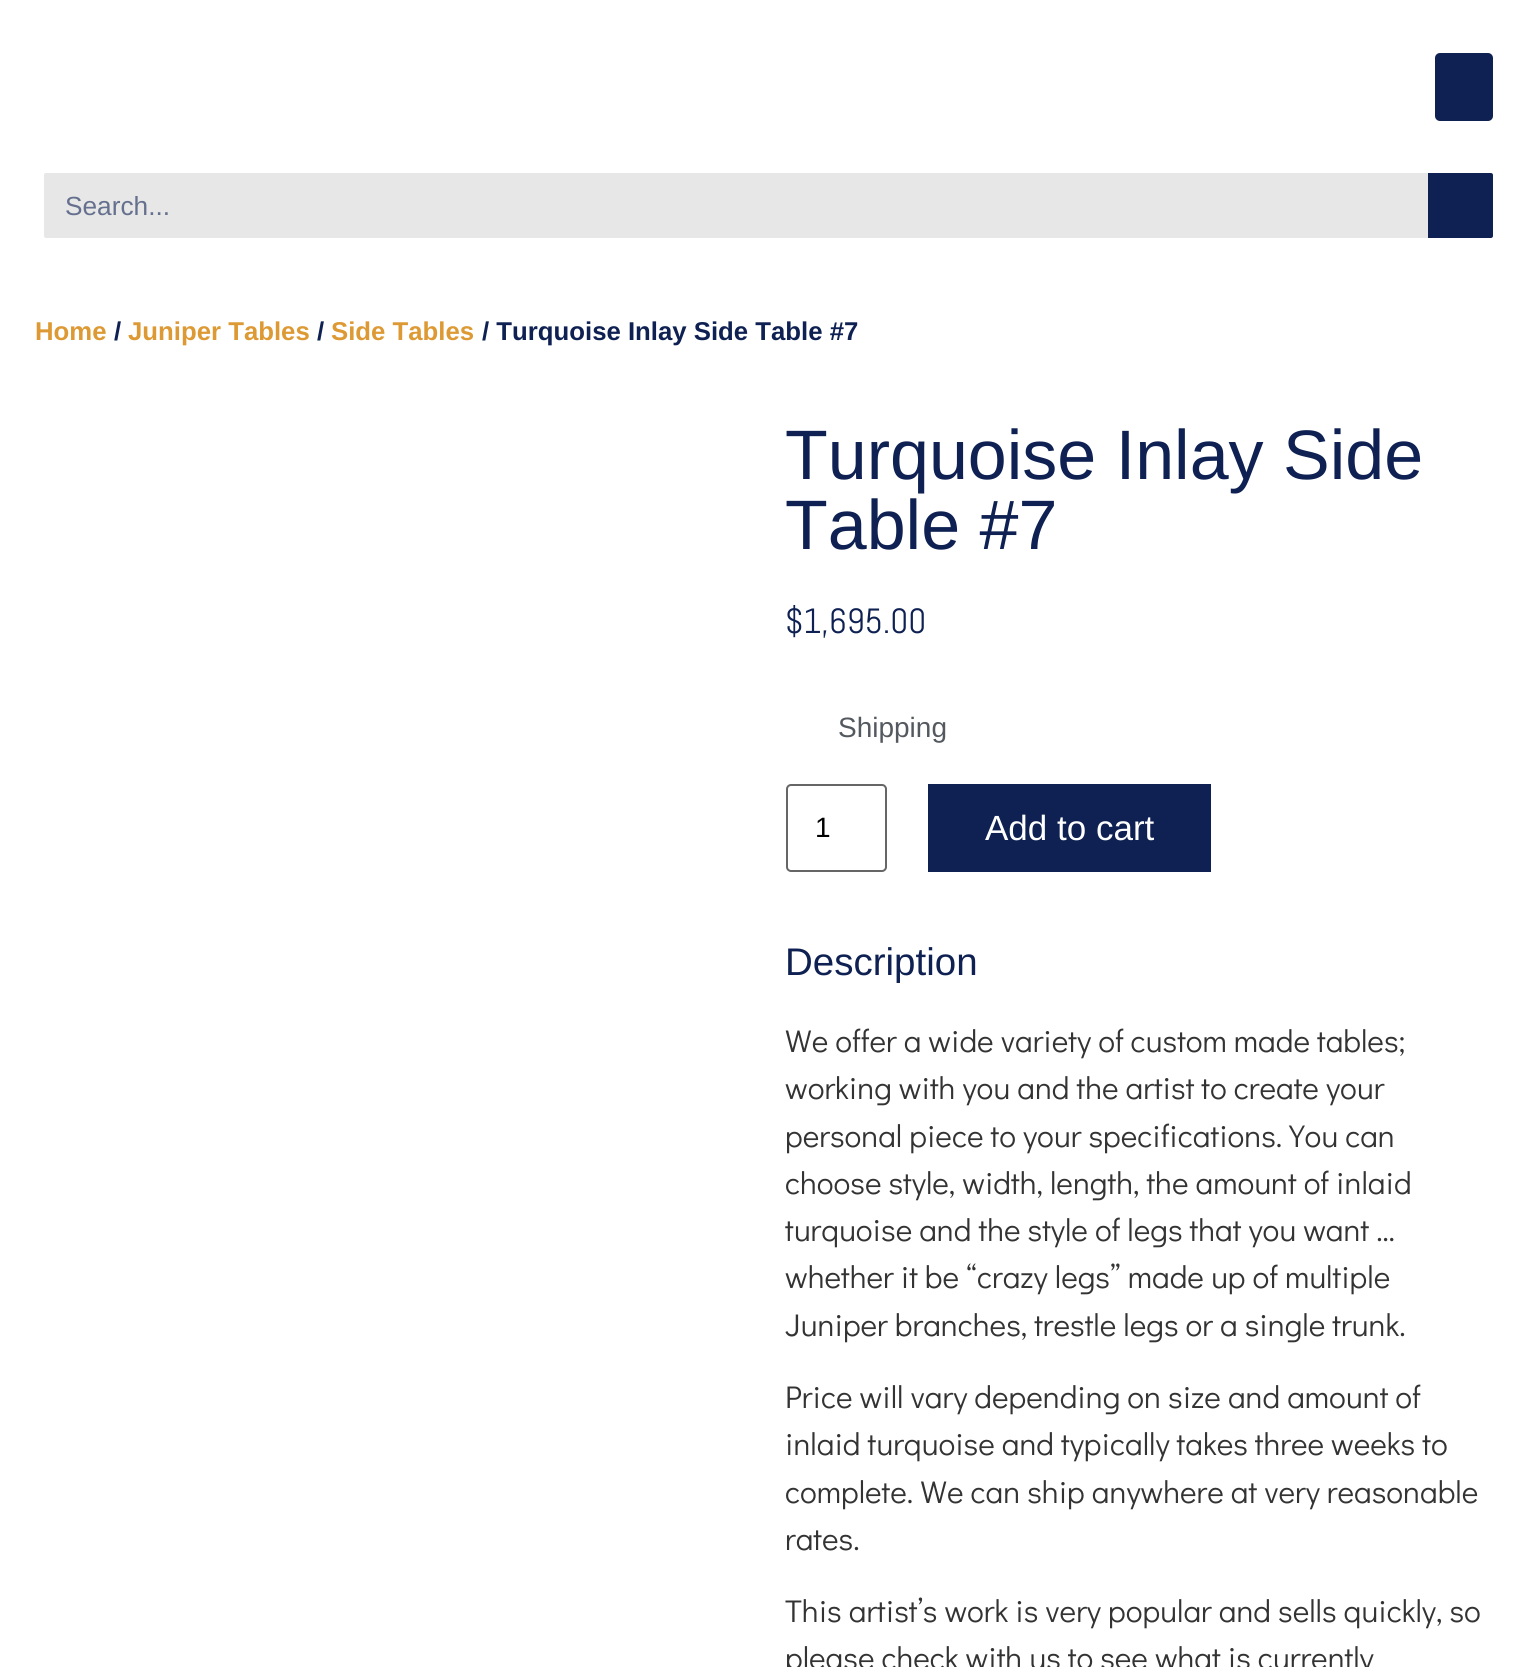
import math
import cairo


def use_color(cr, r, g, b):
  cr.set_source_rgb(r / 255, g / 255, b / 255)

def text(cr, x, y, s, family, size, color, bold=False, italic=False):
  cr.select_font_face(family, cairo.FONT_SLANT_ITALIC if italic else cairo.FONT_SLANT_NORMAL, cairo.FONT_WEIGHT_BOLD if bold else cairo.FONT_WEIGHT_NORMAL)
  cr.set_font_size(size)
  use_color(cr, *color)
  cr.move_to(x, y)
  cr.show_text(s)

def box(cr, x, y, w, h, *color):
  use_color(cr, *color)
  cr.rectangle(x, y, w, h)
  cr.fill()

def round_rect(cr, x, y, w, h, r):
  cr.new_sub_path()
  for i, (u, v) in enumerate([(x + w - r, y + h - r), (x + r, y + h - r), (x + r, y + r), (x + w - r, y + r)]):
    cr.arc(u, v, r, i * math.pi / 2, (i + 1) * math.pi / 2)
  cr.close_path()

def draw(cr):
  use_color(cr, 255, 255, 255)
  cr.paint()
  use_color(cr, 14, 33, 82)
  round_rect(cr, 1435, 53, 58, 68, 5)
  cr.fill()
  use_color(cr, 231, 231, 231)
  round_rect(cr, 44, 173, 1449, 65, 2)
  cr.fill()
  use_color(cr, 14, 33, 82)
  cr.new_path()
  cr.move_to(1428, 173)
  cr.line_to(1491, 173)
  cr.curve_to(1492, 173, 1493, 174, 1493, 175)
  cr.line_to(1493, 236)
  cr.curve_to(1493, 237, 1492, 238, 1491, 238)
  cr.line_to(1428, 238)
  cr.close_path()
  cr.fill()
  round_rect(cr, 787, 785, 99, 86, 4)
  use_color(cr, 102, 102, 102)
  cr.stroke()
  box(cr, 928, 784, 283, 88, 14, 33, 82)
  text(cr, 65, 215, "Search...", "Liberation Sans", 26.25, (101, 112, 142))
  text(cr, 35, 340, "Home", "Liberation Sans", 25.75, (221, 153, 51), bold=True)
  text(cr, 114, 340, "/", "Liberation Sans", 25.75, (14, 33, 82), bold=True)
  text(cr, 128, 340, "Juniper Tables", "Liberation Sans", 25.75, (221, 153, 51), bold=True)
  text(cr, 317, 340, "/", "Liberation Sans", 25.75, (14, 33, 82), bold=True)
  text(cr, 331, 340, "Side Tables", "Liberation Sans", 25.75, (221, 153, 51), bold=True)
  text(cr, 482, 340, "/ Turquoise Inlay Side Table #7", "Liberation Sans", 25.75, (14, 33, 82), bold=True)
  text(cr, 785, 479, "Turquoise Inlay Side", "Liberation Sans", 70, (14, 33, 82))
  text(cr, 785, 549, "Table #7", "Liberation Sans", 70, (14, 33, 82))
  text(cr, 785, 633, "$1,695.00", "Abel", 35, (14, 33, 82))
  text(cr, 838, 737, "Shipping", "Liberation Sans", 28, (84, 89, 95))
  text(cr, 815, 837, "1", "Liberation Sans", 28, (0, 0, 0))
  text(cr, 985, 840, "Add to cart", "Liberation Sans", 35, (255, 255, 255))
  text(cr, 785, 975, "Description", "Liberation Sans", 38.5, (14, 33, 82))
  text(cr, 785, 1052, "We offer a wide variety of custom made tables;", "Didact Gothic", 31.5, (51, 51, 51))
  text(cr, 785, 1099, "working with you and the artist to create your", "Didact Gothic", 31.5, (51, 51, 51))
  text(cr, 785, 1147, "personal piece to your specifications. You can", "Didact Gothic", 31.5, (51, 51, 51))
  text(cr, 785, 1194, "choose style, width, length, the amount of inlaid", "Didact Gothic", 31.5, (51, 51, 51))
  text(cr, 785, 1241, "turquoise and the style of legs that you want …", "Didact Gothic", 31.5, (51, 51, 51))
  text(cr, 785, 1288, "whether it be “crazy legs” made up of multiple", "Didact Gothic", 31.5, (51, 51, 51))
  text(cr, 785, 1336, "Juniper branches, trestle legs or a single trunk.", "Didact Gothic", 31.5, (51, 51, 51))
  text(cr, 785, 1408, "Price will vary depending on size and amount of", "Didact Gothic", 31.5, (51, 51, 51))
  text(cr, 785, 1455, "inlaid turquoise and typically takes three weeks to", "Didact Gothic", 31.5, (51, 51, 51))
  text(cr, 785, 1503, "complete. We can ship anywhere at very reasonable", "Didact Gothic", 31.5, (51, 51, 51))
  text(cr, 785, 1550, "rates.", "Didact Gothic", 31.5, (51, 51, 51))
  text(cr, 785, 1622, "This artist’s work is very popular and sells quickly, so", "Didact Gothic", 31.5, (51, 51, 51))
  text(cr, 785, 1669, "please check with us to see what is currently", "Didact Gothic", 31.5, (51, 51, 51))


surface = cairo.ImageSurface(cairo.FORMAT_RGB24, 1535, 1667)
cr = cairo.Context(surface)
options = cairo.FontOptions()
options.set_hint_metrics(cairo.HINT_METRICS_OFF)
options.set_hint_style(cairo.HINT_STYLE_NONE)
cr.set_font_options(options)
cr.set_miter_limit(4)
draw(cr)
surface.write_to_png("out.png")
